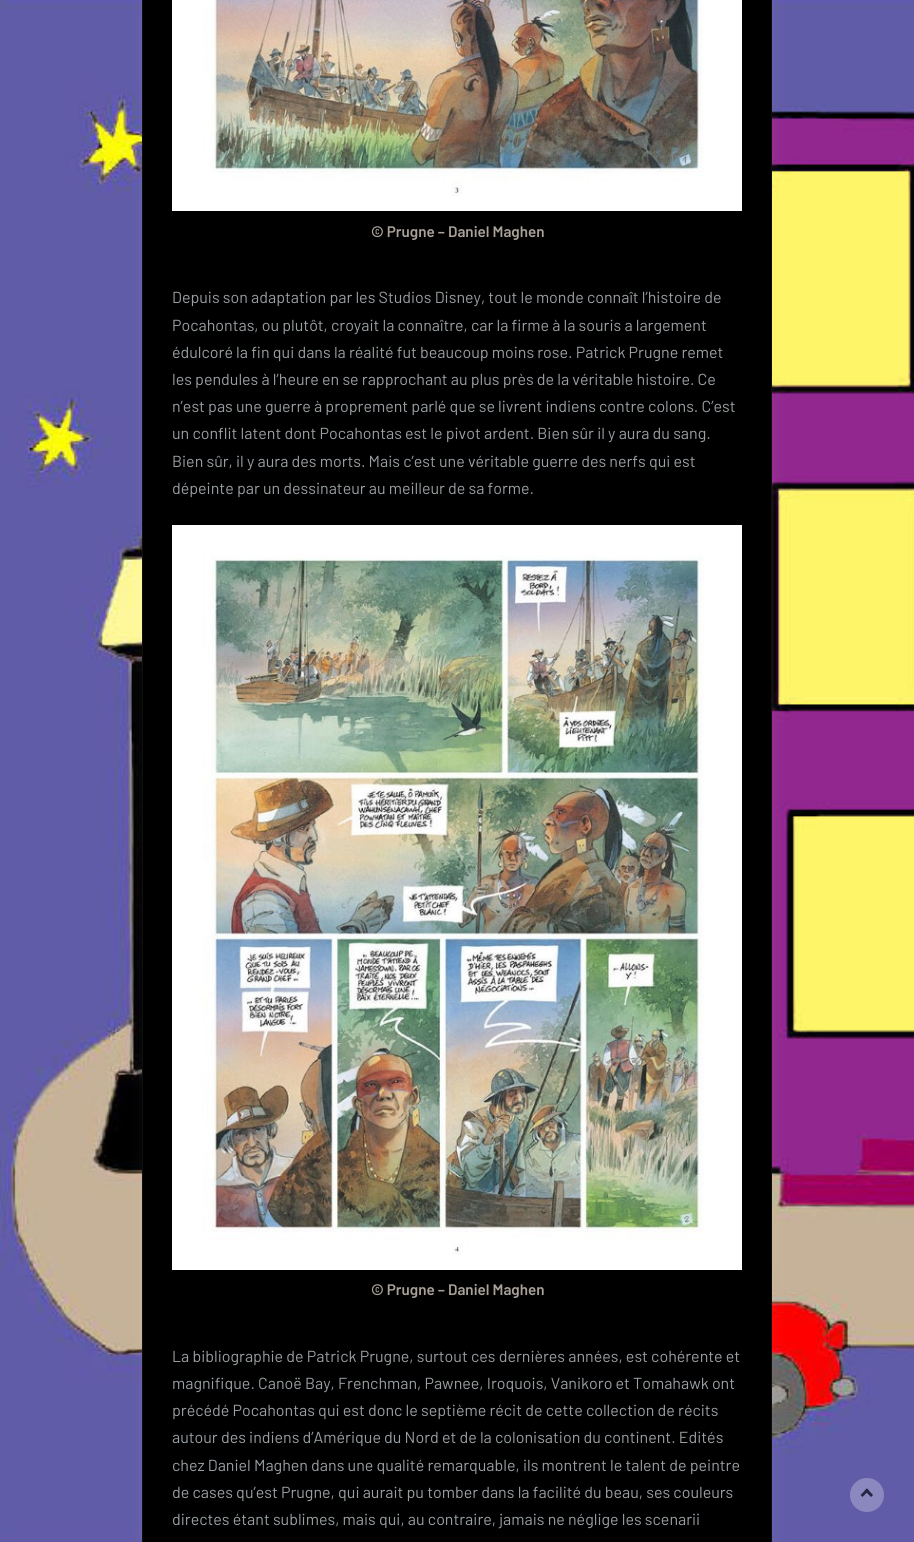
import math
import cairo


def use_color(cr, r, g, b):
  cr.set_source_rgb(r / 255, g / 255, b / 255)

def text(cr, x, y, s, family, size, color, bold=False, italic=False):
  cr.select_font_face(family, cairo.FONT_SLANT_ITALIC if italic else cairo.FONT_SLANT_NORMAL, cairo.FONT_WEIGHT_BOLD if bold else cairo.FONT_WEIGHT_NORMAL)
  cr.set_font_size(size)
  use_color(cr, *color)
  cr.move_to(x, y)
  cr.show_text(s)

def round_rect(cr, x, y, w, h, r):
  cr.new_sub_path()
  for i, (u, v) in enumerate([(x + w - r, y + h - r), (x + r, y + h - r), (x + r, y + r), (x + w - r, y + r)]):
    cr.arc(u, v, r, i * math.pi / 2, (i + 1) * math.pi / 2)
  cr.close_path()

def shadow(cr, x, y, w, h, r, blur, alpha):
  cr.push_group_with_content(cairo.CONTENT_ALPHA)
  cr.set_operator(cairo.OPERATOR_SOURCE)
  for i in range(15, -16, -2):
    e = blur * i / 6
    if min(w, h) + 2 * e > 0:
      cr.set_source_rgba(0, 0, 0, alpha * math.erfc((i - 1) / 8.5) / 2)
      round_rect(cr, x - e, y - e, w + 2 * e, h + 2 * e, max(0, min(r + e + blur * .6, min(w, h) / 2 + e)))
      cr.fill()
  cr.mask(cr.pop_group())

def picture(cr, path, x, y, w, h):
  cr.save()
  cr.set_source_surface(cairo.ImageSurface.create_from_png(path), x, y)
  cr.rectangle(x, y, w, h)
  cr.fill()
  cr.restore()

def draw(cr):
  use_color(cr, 255, 255, 255)
  cr.paint()
  picture(cr, "img_01.png", 0, 0, 914, 1542)
  shadow(cr, 143, -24, 630, 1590, 0, 8, 0.06)
  use_color(cr, 0, 0, 0)
  cr.rectangle(142.5, -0.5, 629, 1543)
  cr.fill_preserve()
  use_color(cr, 16, 16, 16)
  cr.set_line_width(1)
  cr.stroke()
  picture(cr, "img_02.png", 172, 0, 570, 211)
  picture(cr, "img_03.png", 172, 525, 570, 745)
  use_color(cr, 139, 136, 191)
  cr.arc(867, 1495, 17, 0, 2 * math.pi)
  cr.fill()
  use_color(cr, 38, 37, 67)
  cr.new_path()
  cr.move_to(862.5, 1497)
  cr.line_to(860.5, 1495)
  cr.line_to(867, 1488.5)
  cr.line_to(869, 1490.5)
  cr.close_path()
  cr.fill()
  cr.new_path()
  cr.move_to(871, 1497)
  cr.line_to(864.5, 1490.5)
  cr.line_to(867, 1488.5)
  cr.line_to(873, 1495)
  cr.close_path()
  cr.fill()
  text(cr, 371, 237, "© Prugne – Daniel Maghen", "Barlow SemiBold", 15.25, (170, 162, 153))
  text(cr, 172, 303, "Depuis son adaptation par les Studios Disney, tout le monde connaît l’histoire de", "Barlow", 16, (153, 159, 163))
  text(cr, 172, 331, "Pocahontas, ou plutôt, croyait la connaître, car la firme à la souris a largement", "Barlow", 16, (153, 159, 163))
  text(cr, 172, 358, "édulcoré la fin qui dans la réalité fut beaucoup moins rose. Patrick Prugne remet", "Barlow", 16, (153, 159, 163))
  text(cr, 172, 385, "les pendules à l’heure en se rapprochant au plus près de la véritable histoire. Ce", "Barlow", 16, (153, 159, 163))
  text(cr, 172, 412, "n’est pas une guerre à proprement parlé que se livrent indiens contre colons. C’est", "Barlow", 16, (153, 159, 163))
  text(cr, 172, 439, "un conflit latent dont Pocahontas est le pivot ardent. Bien sûr il y aura du sang.", "Barlow", 16, (153, 159, 163))
  text(cr, 172, 467, "Bien sûr, il y aura des morts. Mais c’est une véritable guerre des nerfs qui est", "Barlow", 16, (153, 159, 163))
  text(cr, 172, 494, "dépeinte par un dessinateur au meilleur de sa forme.", "Barlow", 16, (153, 159, 163))
  text(cr, 371, 1295, "© Prugne – Daniel Maghen", "Barlow SemiBold", 15.25, (170, 162, 153))
  text(cr, 172, 1362, "La bibliographie de Patrick Prugne, surtout ces dernières années, est cohérente et", "Barlow", 16, (153, 159, 163))
  text(cr, 172, 1389, "magnifique. Canoë Bay, Frenchman, Pawnee, Iroquois, Vanikoro et Tomahawk ont", "Barlow", 16, (153, 159, 163))
  text(cr, 172, 1416, "précédé Pocahontas qui est donc le septième récit de cette collection de récits", "Barlow", 16, (153, 159, 163))
  text(cr, 172, 1443, "autour des indiens d’Amérique du Nord et de la colonisation du continent. Edités", "Barlow", 16, (153, 159, 163))
  text(cr, 172, 1471, "chez Daniel Maghen dans une qualité remarquable, ils montrent le talent de peintre", "Barlow", 16, (153, 159, 163))
  text(cr, 172, 1498, "de cases qu’est Prugne, qui aurait pu tomber dans la facilité du beau, ses couleurs", "Barlow", 16, (153, 159, 163))
  text(cr, 172, 1525, "directes étant sublimes, mais qui, au contraire, jamais ne néglige les scenarii", "Barlow", 16, (153, 159, 163))


surface = cairo.ImageSurface(cairo.FORMAT_RGB24, 914, 1542)
cr = cairo.Context(surface)
options = cairo.FontOptions()
options.set_hint_metrics(cairo.HINT_METRICS_OFF)
options.set_hint_style(cairo.HINT_STYLE_NONE)
cr.set_font_options(options)
cr.set_miter_limit(4)
draw(cr)
surface.write_to_png("out.png")
